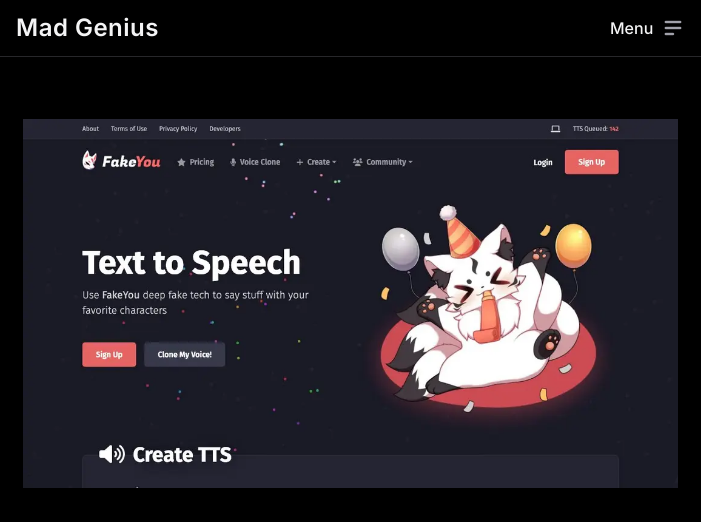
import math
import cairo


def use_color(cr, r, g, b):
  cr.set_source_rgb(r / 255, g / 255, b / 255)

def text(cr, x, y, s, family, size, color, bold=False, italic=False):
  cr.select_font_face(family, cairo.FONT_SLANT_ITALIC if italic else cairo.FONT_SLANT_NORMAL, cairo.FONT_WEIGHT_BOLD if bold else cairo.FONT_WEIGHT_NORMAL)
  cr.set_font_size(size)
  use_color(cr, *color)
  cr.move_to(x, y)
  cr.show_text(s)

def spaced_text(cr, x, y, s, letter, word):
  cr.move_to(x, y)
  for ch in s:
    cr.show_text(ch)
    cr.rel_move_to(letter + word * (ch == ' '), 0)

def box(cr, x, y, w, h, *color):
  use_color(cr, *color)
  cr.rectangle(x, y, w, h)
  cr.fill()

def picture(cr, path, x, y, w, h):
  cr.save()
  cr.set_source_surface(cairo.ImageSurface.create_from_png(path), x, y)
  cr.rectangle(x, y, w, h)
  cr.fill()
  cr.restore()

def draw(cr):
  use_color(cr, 0, 0, 0)
  cr.paint()
  box(cr, 0, 56, 701, 1, 39, 39, 42)
  picture(cr, "img_01.png", 664, 20, 18, 16)
  picture(cr, "img_02.png", 23, 119, 655, 369)
  cr.select_font_face("Inter SemiBold")
  cr.set_font_size(24)
  use_color(cr, 244, 244, 245)
  spaced_text(cr, 16, 36, "Mad Genius", 0.5, 0)
  text(cr, 610, 34, "Menu", "Inter Medium", 16, (244, 244, 245))


surface = cairo.ImageSurface(cairo.FORMAT_RGB24, 701, 522)
cr = cairo.Context(surface)
options = cairo.FontOptions()
options.set_hint_metrics(cairo.HINT_METRICS_OFF)
options.set_hint_style(cairo.HINT_STYLE_NONE)
cr.set_font_options(options)
cr.set_miter_limit(4)
draw(cr)
surface.write_to_png("out.png")
